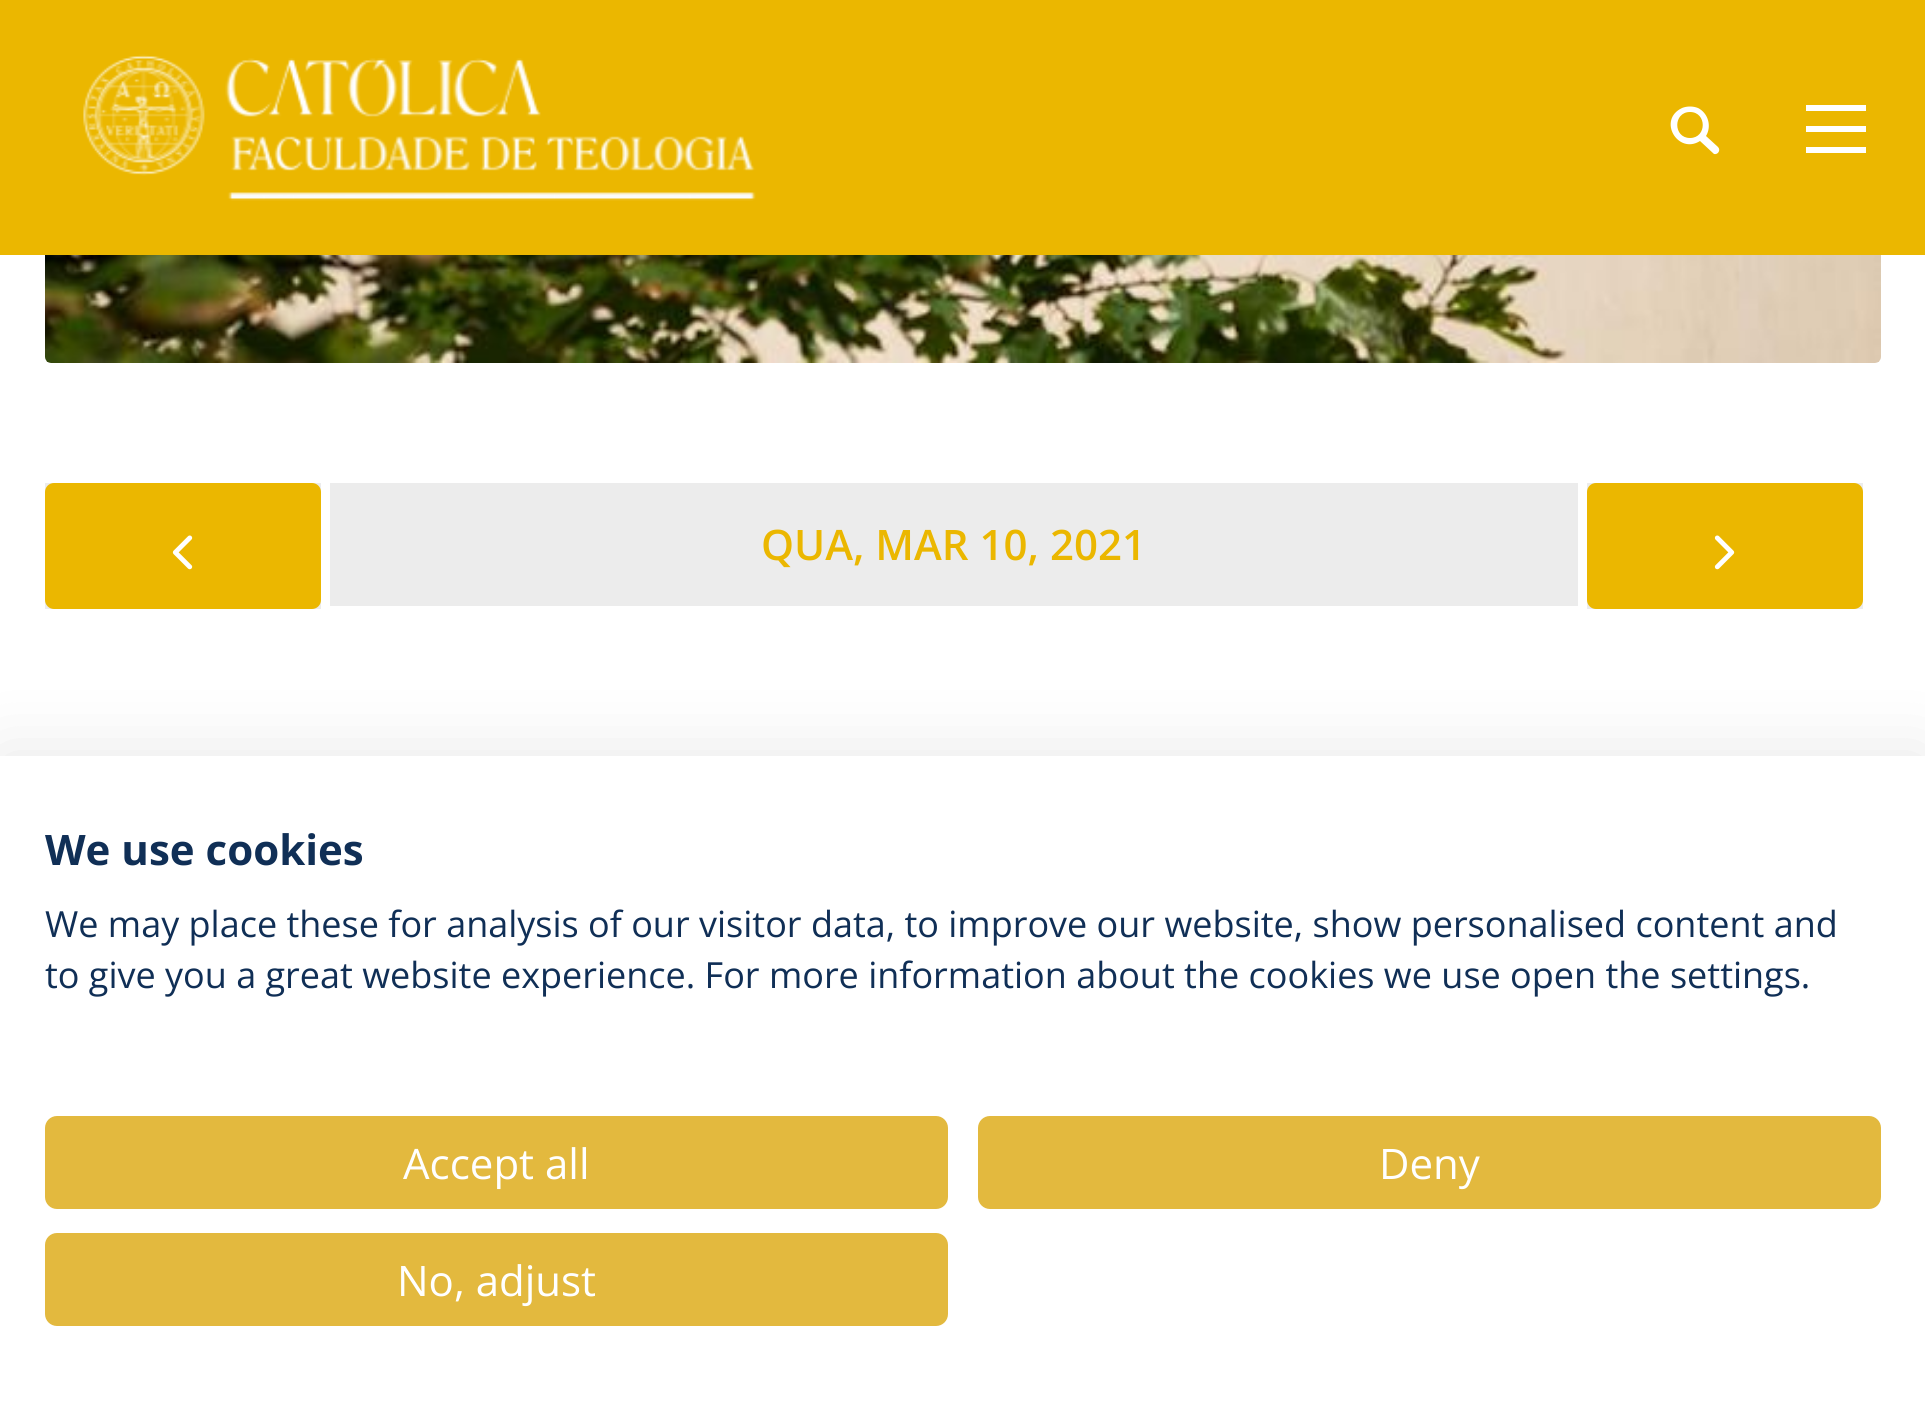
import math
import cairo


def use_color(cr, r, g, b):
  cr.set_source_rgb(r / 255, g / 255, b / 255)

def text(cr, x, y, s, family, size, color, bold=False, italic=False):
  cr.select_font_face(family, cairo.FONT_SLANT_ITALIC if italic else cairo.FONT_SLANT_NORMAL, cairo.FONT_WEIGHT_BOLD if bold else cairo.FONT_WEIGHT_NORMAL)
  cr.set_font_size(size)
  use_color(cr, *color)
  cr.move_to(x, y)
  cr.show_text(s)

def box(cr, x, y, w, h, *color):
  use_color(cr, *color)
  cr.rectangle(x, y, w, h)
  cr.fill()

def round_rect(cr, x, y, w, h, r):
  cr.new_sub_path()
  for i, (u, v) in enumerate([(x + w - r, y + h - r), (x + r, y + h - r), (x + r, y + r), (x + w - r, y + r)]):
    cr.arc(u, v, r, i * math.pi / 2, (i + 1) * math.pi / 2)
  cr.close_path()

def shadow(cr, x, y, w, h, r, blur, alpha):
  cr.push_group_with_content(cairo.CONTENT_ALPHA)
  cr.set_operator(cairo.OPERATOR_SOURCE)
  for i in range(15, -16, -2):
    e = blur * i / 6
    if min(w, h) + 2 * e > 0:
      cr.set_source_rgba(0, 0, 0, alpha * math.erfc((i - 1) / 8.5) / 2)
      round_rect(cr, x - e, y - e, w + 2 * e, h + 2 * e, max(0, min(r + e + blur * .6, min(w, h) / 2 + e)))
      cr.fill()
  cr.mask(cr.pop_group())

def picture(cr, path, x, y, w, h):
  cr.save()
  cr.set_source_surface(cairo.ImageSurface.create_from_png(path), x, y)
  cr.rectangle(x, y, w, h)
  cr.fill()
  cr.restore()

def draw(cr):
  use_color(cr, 255, 255, 255)
  cr.paint()
  box(cr, 0, 0, 1925, 255, 235, 183, 0)
  picture(cr, "img_01.png", 83, 54, 673, 147)
  use_color(cr, 255, 255, 255)
  cr.new_path()
  cr.move_to(1718, 147)
  cr.line_to(1706, 136)
  cr.curve_to(1712, 126, 1708, 113, 1698, 108)
  cr.curve_to(1693, 106, 1687, 106, 1682, 108)
  cr.curve_to(1657, 120, 1678, 155, 1700, 141)
  cr.line_to(1714, 154)
  cr.curve_to(1718, 155, 1721, 150, 1718, 147)
  cr.close_path()
  cr.move_to(1690, 138)
  cr.curve_to(1673, 138, 1673, 112, 1690, 112)
  cr.curve_to(1707, 112, 1707, 138, 1690, 138)
  cr.close_path()
  cr.fill()
  box(cr, 1806, 105, 60, 6, 255, 255, 255)
  box(cr, 1806, 126, 60, 6, 255, 255, 255)
  box(cr, 1806, 147, 60, 6, 255, 255, 255)
  picture(cr, "img_02.png", 45, 255, 1836, 108)
  box(cr, 45, 483, 276, 126, 236, 236, 236)
  use_color(cr, 235, 183, 0)
  round_rect(cr, 45, 483, 276, 126, 9)
  cr.fill()
  picture(cr, "img_03.png", 172, 535, 21, 35)
  box(cr, 330, 483, 1248, 123, 236, 236, 236)
  box(cr, 1587, 483, 276, 126, 236, 236, 236)
  use_color(cr, 235, 183, 0)
  round_rect(cr, 1587, 483, 276, 126, 9)
  cr.fill()
  picture(cr, "img_04.png", 1714, 535, 21, 35)
  use_color(cr, 0, 0, 0)
  shadow(cr, 0, 756, 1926, 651, 0, 36, 0.1)
  box(cr, 0, 756, 1925, 649, 255, 255, 255)
  use_color(cr, 227, 185, 62)
  round_rect(cr, 46.5, 1117.5, 900, 90, 10.5)
  cr.fill_preserve()
  cr.set_line_width(3)
  cr.stroke()
  round_rect(cr, 979.5, 1117.5, 900, 90, 10.5)
  cr.fill_preserve()
  cr.stroke()
  round_rect(cr, 46.5, 1234.5, 900, 90, 10.5)
  cr.fill_preserve()
  cr.stroke()
  text(cr, 761, 560, "QUA, MAR 10, 2021", "Open Sans SemiBold", 42, (235, 183, 0))
  text(cr, 45, 865, "We use cookies", "Open Sans", 42, (16, 47, 86), bold=True)
  text(cr, 45, 937, "We may place these for analysis of our visitor data, to improve our website, show personalised content and", "Open Sans", 36, (16, 47, 86))
  text(cr, 45, 988, "to give you a great website experience. For more information about the cookies we use open the settings.", "Open Sans", 36, (16, 47, 86))
  text(cr, 403, 1179, "Accept all", "Open Sans", 42, (255, 255, 255))
  text(cr, 1379, 1179, "Deny", "Open Sans", 42, (255, 255, 255))
  text(cr, 397, 1296, "No, adjust", "Open Sans", 42, (255, 255, 255))


surface = cairo.ImageSurface(cairo.FORMAT_RGB24, 1925, 1405)
cr = cairo.Context(surface)
options = cairo.FontOptions()
options.set_hint_metrics(cairo.HINT_METRICS_OFF)
options.set_hint_style(cairo.HINT_STYLE_NONE)
cr.set_font_options(options)
cr.set_miter_limit(4)
draw(cr)
surface.write_to_png("out.png")
